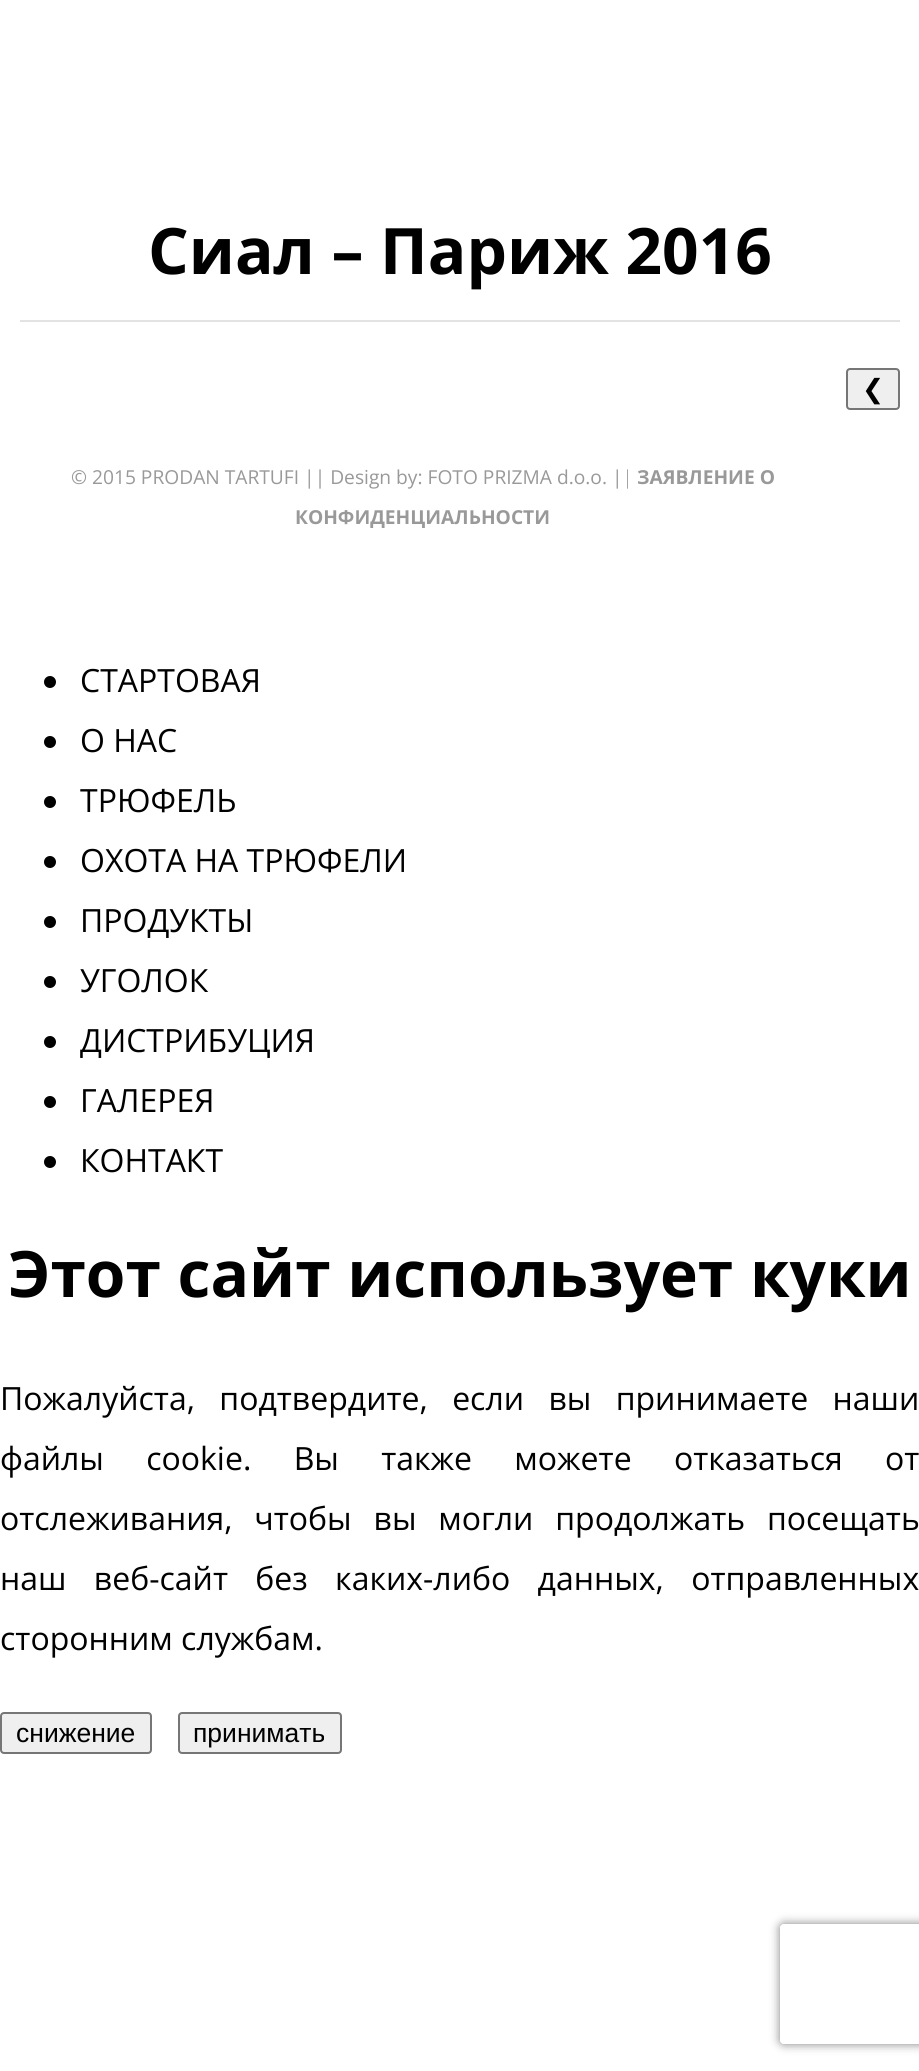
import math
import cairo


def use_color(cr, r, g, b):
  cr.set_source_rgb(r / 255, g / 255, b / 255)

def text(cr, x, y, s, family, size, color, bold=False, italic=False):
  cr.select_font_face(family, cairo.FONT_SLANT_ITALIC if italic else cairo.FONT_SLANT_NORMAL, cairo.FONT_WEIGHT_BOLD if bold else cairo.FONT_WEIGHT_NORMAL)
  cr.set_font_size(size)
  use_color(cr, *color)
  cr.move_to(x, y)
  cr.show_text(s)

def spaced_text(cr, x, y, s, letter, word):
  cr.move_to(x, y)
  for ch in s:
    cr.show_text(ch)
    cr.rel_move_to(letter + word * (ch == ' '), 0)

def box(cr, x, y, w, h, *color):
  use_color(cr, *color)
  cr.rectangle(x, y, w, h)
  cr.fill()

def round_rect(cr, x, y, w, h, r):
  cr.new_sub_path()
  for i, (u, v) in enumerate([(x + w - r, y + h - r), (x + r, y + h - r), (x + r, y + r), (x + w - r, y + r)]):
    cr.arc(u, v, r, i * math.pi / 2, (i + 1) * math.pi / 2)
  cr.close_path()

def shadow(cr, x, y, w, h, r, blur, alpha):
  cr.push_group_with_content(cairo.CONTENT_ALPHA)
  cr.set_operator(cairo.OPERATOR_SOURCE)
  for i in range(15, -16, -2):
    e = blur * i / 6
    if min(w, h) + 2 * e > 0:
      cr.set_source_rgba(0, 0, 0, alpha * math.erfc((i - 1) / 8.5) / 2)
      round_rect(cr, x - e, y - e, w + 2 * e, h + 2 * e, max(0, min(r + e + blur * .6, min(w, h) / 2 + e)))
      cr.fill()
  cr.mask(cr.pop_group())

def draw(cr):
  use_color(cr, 255, 255, 255)
  cr.paint()
  box(cr, 20, 320, 880, 2, 227, 227, 227)
  use_color(cr, 239, 239, 239)
  round_rect(cr, 847, 369, 52, 40, 3)
  cr.fill_preserve()
  use_color(cr, 118, 118, 118)
  cr.stroke()
  use_color(cr, 0, 0, 0)
  cr.arc(50, 682, 6, 0, 2 * math.pi)
  cr.fill()
  cr.arc(50, 742, 6, 0, 2 * math.pi)
  cr.fill()
  cr.arc(50, 802, 6, 0, 2 * math.pi)
  cr.fill()
  cr.arc(50, 862, 6, 0, 2 * math.pi)
  cr.fill()
  cr.arc(50, 922, 6, 0, 2 * math.pi)
  cr.fill()
  cr.arc(50, 982, 6, 0, 2 * math.pi)
  cr.fill()
  cr.arc(50, 1042, 6, 0, 2 * math.pi)
  cr.fill()
  cr.arc(50, 1102, 6, 0, 2 * math.pi)
  cr.fill()
  cr.arc(50, 1162, 6, 0, 2 * math.pi)
  cr.fill()
  use_color(cr, 239, 239, 239)
  round_rect(cr, 1, 1713, 150, 40, 3)
  cr.fill_preserve()
  use_color(cr, 118, 118, 118)
  cr.stroke()
  use_color(cr, 239, 239, 239)
  round_rect(cr, 179, 1713, 162, 40, 3)
  cr.fill_preserve()
  use_color(cr, 118, 118, 118)
  cr.stroke()
  cr.save()
  cr.set_fill_rule(cairo.FILL_RULE_EVEN_ODD)
  cr.new_path()
  cr.move_to(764, 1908)
  cr.line_to(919, 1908)
  cr.line_to(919, 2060)
  cr.line_to(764, 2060)
  cr.close_path()
  cr.move_to(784, 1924)
  cr.line_to(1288, 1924)
  cr.curve_to(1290, 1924, 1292, 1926, 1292, 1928)
  cr.line_to(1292, 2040)
  cr.curve_to(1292, 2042, 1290, 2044, 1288, 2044)
  cr.line_to(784, 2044)
  cr.curve_to(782, 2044, 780, 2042, 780, 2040)
  cr.line_to(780, 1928)
  cr.curve_to(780, 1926, 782, 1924, 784, 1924)
  cr.close_path()
  cr.clip()
  use_color(cr, 128, 128, 128)
  shadow(cr, 780, 1924, 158, 120, 4, 5, 1)
  cr.restore()
  text(cr, 148, 274, "Сиал – Париж 2016", "Open Sans", 64, (0, 0, 0), bold=True)
  text(cr, 862, 398, "❮", "DejaVu Sans", 26.5, (0, 0, 0))
  text(cr, 71, 484, "© 2015 PRODAN TARTUFI || Design by: FOTO PRIZMA d.o.o. ||", "Open Sans", 19.2, (153, 153, 153))
  text(cr, 637, 484, "ЗАЯВЛЕНИЕ О", "Open Sans", 19.2, (153, 153, 153), bold=True)
  text(cr, 295, 524, "КОНФИДЕНЦИАЛЬНОСТИ", "Open Sans", 19.2, (153, 153, 153), bold=True)
  text(cr, 80, 692, "СТАРТОВАЯ", "Open Sans", 32, (0, 0, 0))
  text(cr, 80, 752, "О НАС", "Open Sans", 32, (0, 0, 0))
  text(cr, 80, 812, "ТРЮФЕЛЬ", "Open Sans", 32, (0, 0, 0))
  text(cr, 80, 872, "ОХОТА НА ТРЮФЕЛИ", "Open Sans", 32, (0, 0, 0))
  text(cr, 80, 932, "ПРОДУКТЫ", "Open Sans", 32, (0, 0, 0))
  text(cr, 80, 992, "УГОЛОК", "Open Sans", 32, (0, 0, 0))
  text(cr, 80, 1052, "ДИСТРИБУЦИЯ", "Open Sans", 32, (0, 0, 0))
  text(cr, 80, 1112, "ГАЛЕРЕЯ", "Open Sans", 32, (0, 0, 0))
  text(cr, 80, 1172, "КОНТАКТ", "Open Sans", 32, (0, 0, 0))
  text(cr, 8, 1297, "Этот сайт использует куки", "Open Sans", 64, (0, 0, 0), bold=True)
  cr.select_font_face("Open Sans")
  cr.set_font_size(32)
  spaced_text(cr, 0, 1410, "Пожалуйста, подтвердите, если вы принимаете наши", 0, 16)
  spaced_text(cr, 0, 1470, "файлы cookie. Вы также можете отказаться от", 0, 34)
  spaced_text(cr, 0, 1530, "отслеживания, чтобы вы могли продолжать посещать", 0, 13.5)
  spaced_text(cr, 0, 1590, "наш веб-сайт без каких-либо данных, отправленных", 0, 19)
  text(cr, 0, 1650, "сторонним службам.", "Open Sans", 32, (0, 0, 0))
  text(cr, 16, 1742, "снижение", "Liberation Sans", 26.5, (0, 0, 0))
  text(cr, 193, 1742, "принимать", "Liberation Sans", 26.5, (0, 0, 0))


surface = cairo.ImageSurface(cairo.FORMAT_RGB24, 919, 2071)
cr = cairo.Context(surface)
options = cairo.FontOptions()
options.set_hint_metrics(cairo.HINT_METRICS_OFF)
options.set_hint_style(cairo.HINT_STYLE_NONE)
cr.set_font_options(options)
cr.set_miter_limit(4)
draw(cr)
surface.write_to_png("out.png")
